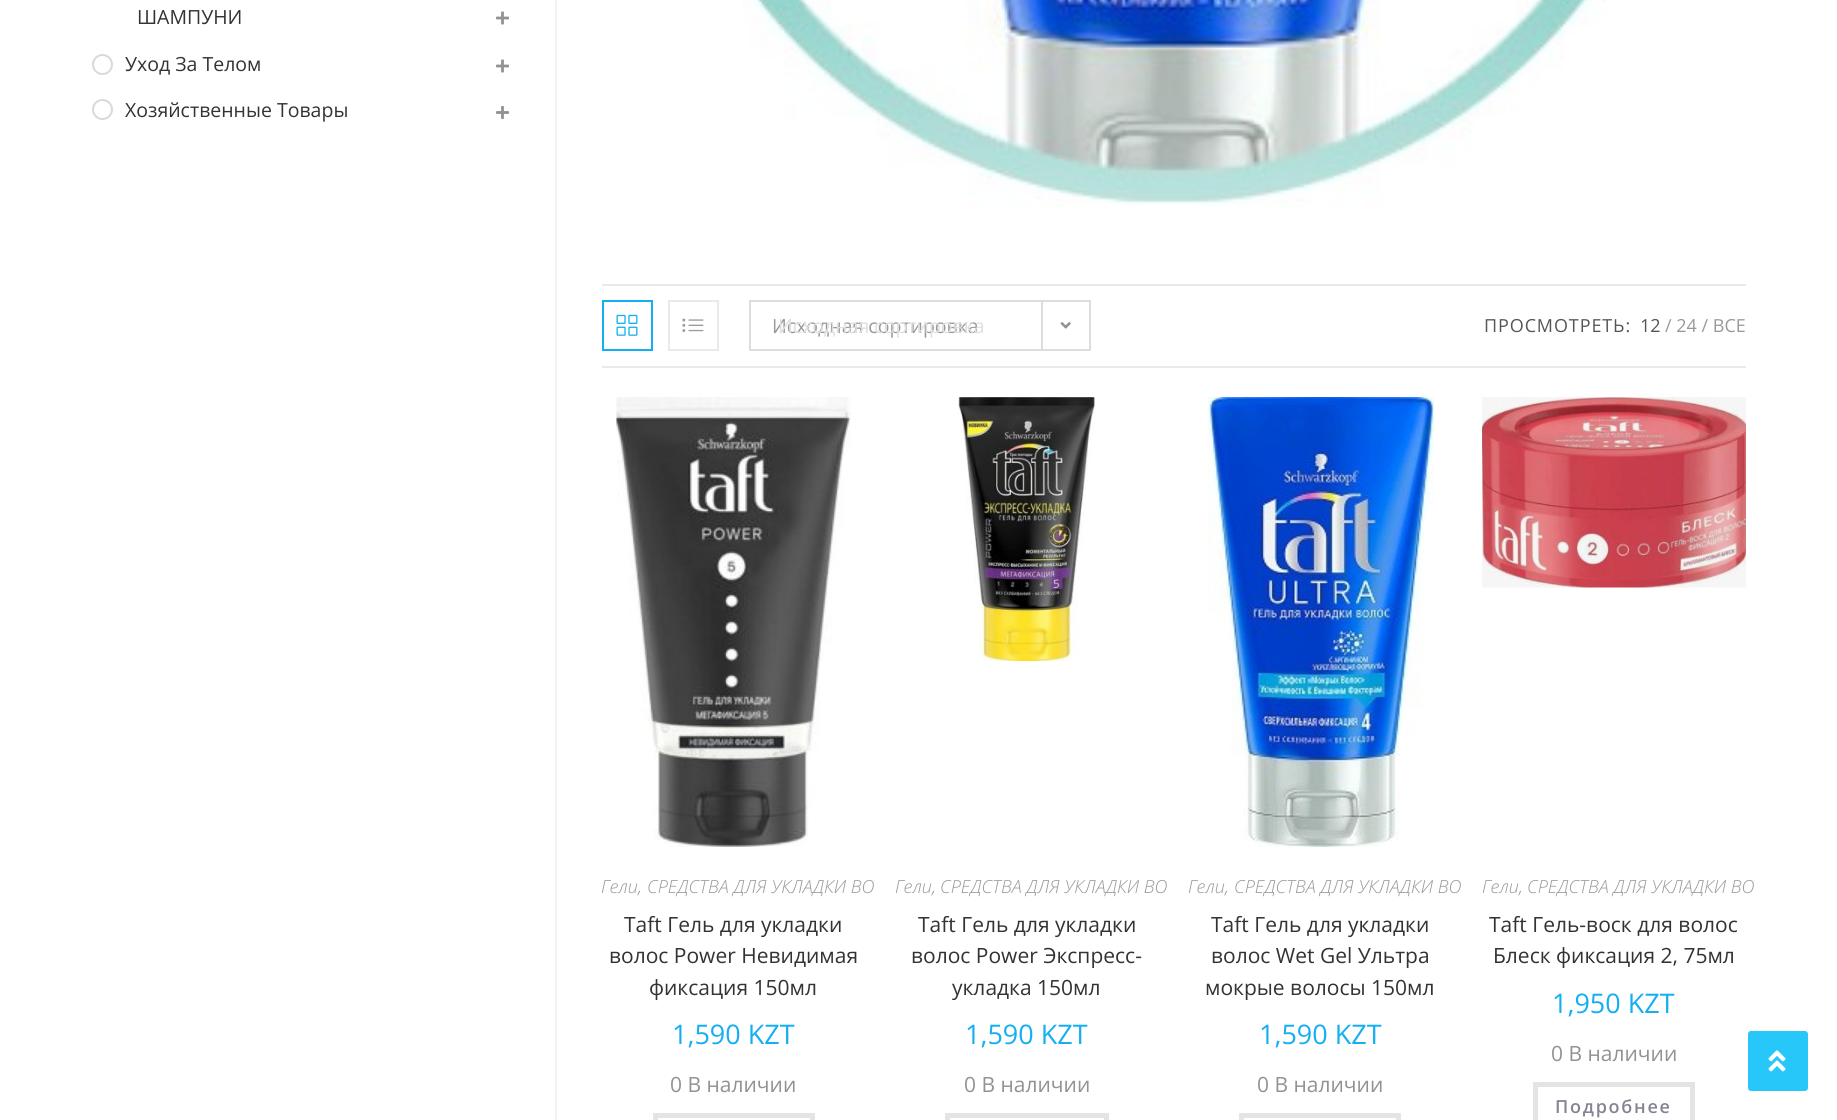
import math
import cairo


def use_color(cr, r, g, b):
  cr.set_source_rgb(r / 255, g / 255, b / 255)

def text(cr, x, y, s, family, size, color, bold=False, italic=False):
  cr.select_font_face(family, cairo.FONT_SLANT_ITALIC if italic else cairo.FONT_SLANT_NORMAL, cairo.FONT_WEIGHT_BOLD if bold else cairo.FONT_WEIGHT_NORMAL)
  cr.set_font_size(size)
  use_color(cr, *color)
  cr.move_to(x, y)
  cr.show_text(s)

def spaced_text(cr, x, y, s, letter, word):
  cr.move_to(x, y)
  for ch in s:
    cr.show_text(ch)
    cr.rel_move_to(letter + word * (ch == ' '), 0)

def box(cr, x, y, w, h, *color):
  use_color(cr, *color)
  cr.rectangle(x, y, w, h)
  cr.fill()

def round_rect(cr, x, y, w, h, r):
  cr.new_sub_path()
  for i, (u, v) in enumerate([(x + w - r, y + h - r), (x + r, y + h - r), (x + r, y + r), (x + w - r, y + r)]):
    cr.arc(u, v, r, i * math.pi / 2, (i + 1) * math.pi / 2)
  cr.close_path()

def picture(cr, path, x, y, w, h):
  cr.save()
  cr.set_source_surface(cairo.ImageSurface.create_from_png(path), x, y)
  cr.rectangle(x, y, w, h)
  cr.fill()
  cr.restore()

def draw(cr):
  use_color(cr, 255, 255, 255)
  cr.paint()
  picture(cr, "img_01.png", 496, 11, 14, 14)
  cr.arc(102.5, 64.5, 9.5, 0, 2 * math.pi)
  use_color(cr, 217, 217, 217)
  cr.stroke()
  picture(cr, "img_01.png", 496, 59, 14, 14)
  cr.arc(102.5, 109.5, 9.5, 0, 2 * math.pi)
  cr.stroke()
  picture(cr, "img_02.png", 495, 105, 15, 15)
  box(cr, 555, 0, 2, 1120, 241, 241, 241)
  picture(cr, "img_03.png", 742, 0, 865, 207)
  box(cr, 602, 284, 1144, 2, 234, 234, 234)
  box(cr, 602, 366, 1144, 2, 234, 234, 234)
  cr.rectangle(603, 301, 49, 49)
  use_color(cr, 19, 175, 240)
  cr.stroke()
  picture(cr, "img_04.png", 616, 314, 22, 22)
  cr.rectangle(669, 301, 49, 49)
  use_color(cr, 234, 234, 234)
  cr.stroke()
  picture(cr, "img_05.png", 682, 318, 22, 14)
  cr.rectangle(750, 301, 340, 49)
  use_color(cr, 221, 221, 221)
  cr.stroke()
  box(cr, 1041, 302, 2, 48, 221, 221, 221)
  picture(cr, "img_06.png", 1060, 322, 11, 7)
  picture(cr, "img_07.png", 616, 397, 235, 450)
  cr.rectangle(655.5, 1115.5, 157, 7)
  use_color(cr, 228, 228, 228)
  cr.set_line_width(5)
  cr.stroke()
  picture(cr, "img_08.png", 958, 397, 138, 264)
  cr.rectangle(947.5, 1115.5, 159, 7)
  cr.stroke()
  picture(cr, "img_09.png", 1207, 397, 227, 450)
  cr.rectangle(1241.5, 1115.5, 157, 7)
  cr.stroke()
  picture(cr, "img_10.png", 1482, 397, 264, 191)
  cr.rectangle(1535.5, 1084.5, 157, 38)
  cr.stroke()
  use_color(cr, 39, 200, 249)
  round_rect(cr, 1748, 1031, 60, 60, 3)
  cr.fill()
  picture(cr, "img_11.png", 1768, 1050, 18, 22)
  text(cr, 137, 24, "ШАМПУНИ", "Open Sans", 19.5, (51, 51, 51))
  text(cr, 125, 71, "Уход За Телом", "Open Sans", 19.5, (51, 51, 51))
  text(cr, 125, 117, "Хозяйственные Товары", "Open Sans", 19.5, (51, 51, 51))
  text(cr, 772, 333, "Исходная сортировка", "Open Sans", 19.5, (153, 153, 153))
  text(cr, 778, 333, "Исходная сортировка", "Open Sans", 19.5, (223, 223, 223))
  cr.set_font_size(18)
  use_color(cr, 85, 85, 85)
  spaced_text(cr, 1484, 332, "ПРОСМОТРЕТЬ:", 0.9, 0)
  text(cr, 1640, 332, "12", "Open Sans", 18, (85, 85, 85))
  text(cr, 1665, 332, "/ 24 / ВСЕ", "Open Sans", 18, (153, 153, 153))
  text(cr, 601, 893, "Гели", "Open Sans Light", 18, (153, 153, 153), italic=True)
  text(cr, 638, 893, ",", "Open Sans Light", 18, (146, 146, 146), italic=True)
  text(cr, 647, 893, "СРЕДСТВА ДЛЯ УКЛАДКИ ВО", "Open Sans Light", 18, (153, 153, 153), italic=True)
  text(cr, 624, 932, "Taft Гель для укладки", "Open Sans", 21, (51, 51, 51))
  text(cr, 609, 963, "волос Power Невидимая", "Open Sans", 21, (51, 51, 51))
  text(cr, 649, 995, "фиксация 150мл", "Open Sans", 21, (51, 51, 51))
  text(cr, 672, 1044, "1,590 KZT", "Open Sans", 27, (19, 175, 240))
  text(cr, 670, 1092, "0 В наличии", "Open Sans", 21, (146, 146, 146))
  text(cr, 895, 893, "Гели", "Open Sans Light", 18, (153, 153, 153), italic=True)
  text(cr, 932, 893, ",", "Open Sans Light", 18, (146, 146, 146), italic=True)
  text(cr, 940, 893, "СРЕДСТВА ДЛЯ УКЛАДКИ ВО", "Open Sans Light", 18, (153, 153, 153), italic=True)
  text(cr, 918, 932, "Taft Гель для укладки", "Open Sans", 21, (51, 51, 51))
  text(cr, 911, 963, "волос Power Экспресс-", "Open Sans", 21, (51, 51, 51))
  text(cr, 952, 995, "укладка 150мл", "Open Sans", 21, (51, 51, 51))
  text(cr, 965, 1044, "1,590 KZT", "Open Sans", 27, (19, 175, 240))
  text(cr, 964, 1092, "0 В наличии", "Open Sans", 21, (146, 146, 146))
  text(cr, 1188, 893, "Гели", "Open Sans Light", 18, (153, 153, 153), italic=True)
  text(cr, 1225, 893, ",", "Open Sans Light", 18, (146, 146, 146), italic=True)
  text(cr, 1234, 893, "СРЕДСТВА ДЛЯ УКЛАДКИ ВО", "Open Sans Light", 18, (153, 153, 153), italic=True)
  text(cr, 1211, 932, "Taft Гель для укладки", "Open Sans", 21, (51, 51, 51))
  text(cr, 1211, 963, "волос Wet Gel Ультра", "Open Sans", 21, (51, 51, 51))
  text(cr, 1205, 995, "мокрые волосы 150мл", "Open Sans", 21, (51, 51, 51))
  text(cr, 1259, 1044, "1,590 KZT", "Open Sans", 27, (19, 175, 240))
  text(cr, 1257, 1092, "0 В наличии", "Open Sans", 21, (146, 146, 146))
  text(cr, 1482, 893, "Гели", "Open Sans Light", 18, (153, 153, 153), italic=True)
  text(cr, 1519, 893, ",", "Open Sans Light", 18, (146, 146, 146), italic=True)
  text(cr, 1527, 893, "СРЕДСТВА ДЛЯ УКЛАДКИ ВО", "Open Sans Light", 18, (153, 153, 153), italic=True)
  text(cr, 1489, 932, "Taft Гель-воск для волос", "Open Sans", 21, (51, 51, 51))
  text(cr, 1493, 963, "Блеск фиксация 2, 75мл", "Open Sans", 21, (51, 51, 51))
  text(cr, 1552, 1013, "1,950 KZT", "Open Sans", 27, (19, 175, 240))
  text(cr, 1551, 1061, "0 В наличии", "Open Sans", 21, (146, 146, 146))
  cr.select_font_face("Open Sans SemiBold")
  cr.set_font_size(18)
  use_color(cr, 132, 132, 148)
  spaced_text(cr, 1555, 1113, "Подробнее", 1.75, 0)


surface = cairo.ImageSurface(cairo.FORMAT_RGB24, 1837, 1120)
cr = cairo.Context(surface)
options = cairo.FontOptions()
options.set_hint_metrics(cairo.HINT_METRICS_OFF)
options.set_hint_style(cairo.HINT_STYLE_NONE)
cr.set_font_options(options)
cr.set_miter_limit(4)
draw(cr)
surface.write_to_png("out.png")
